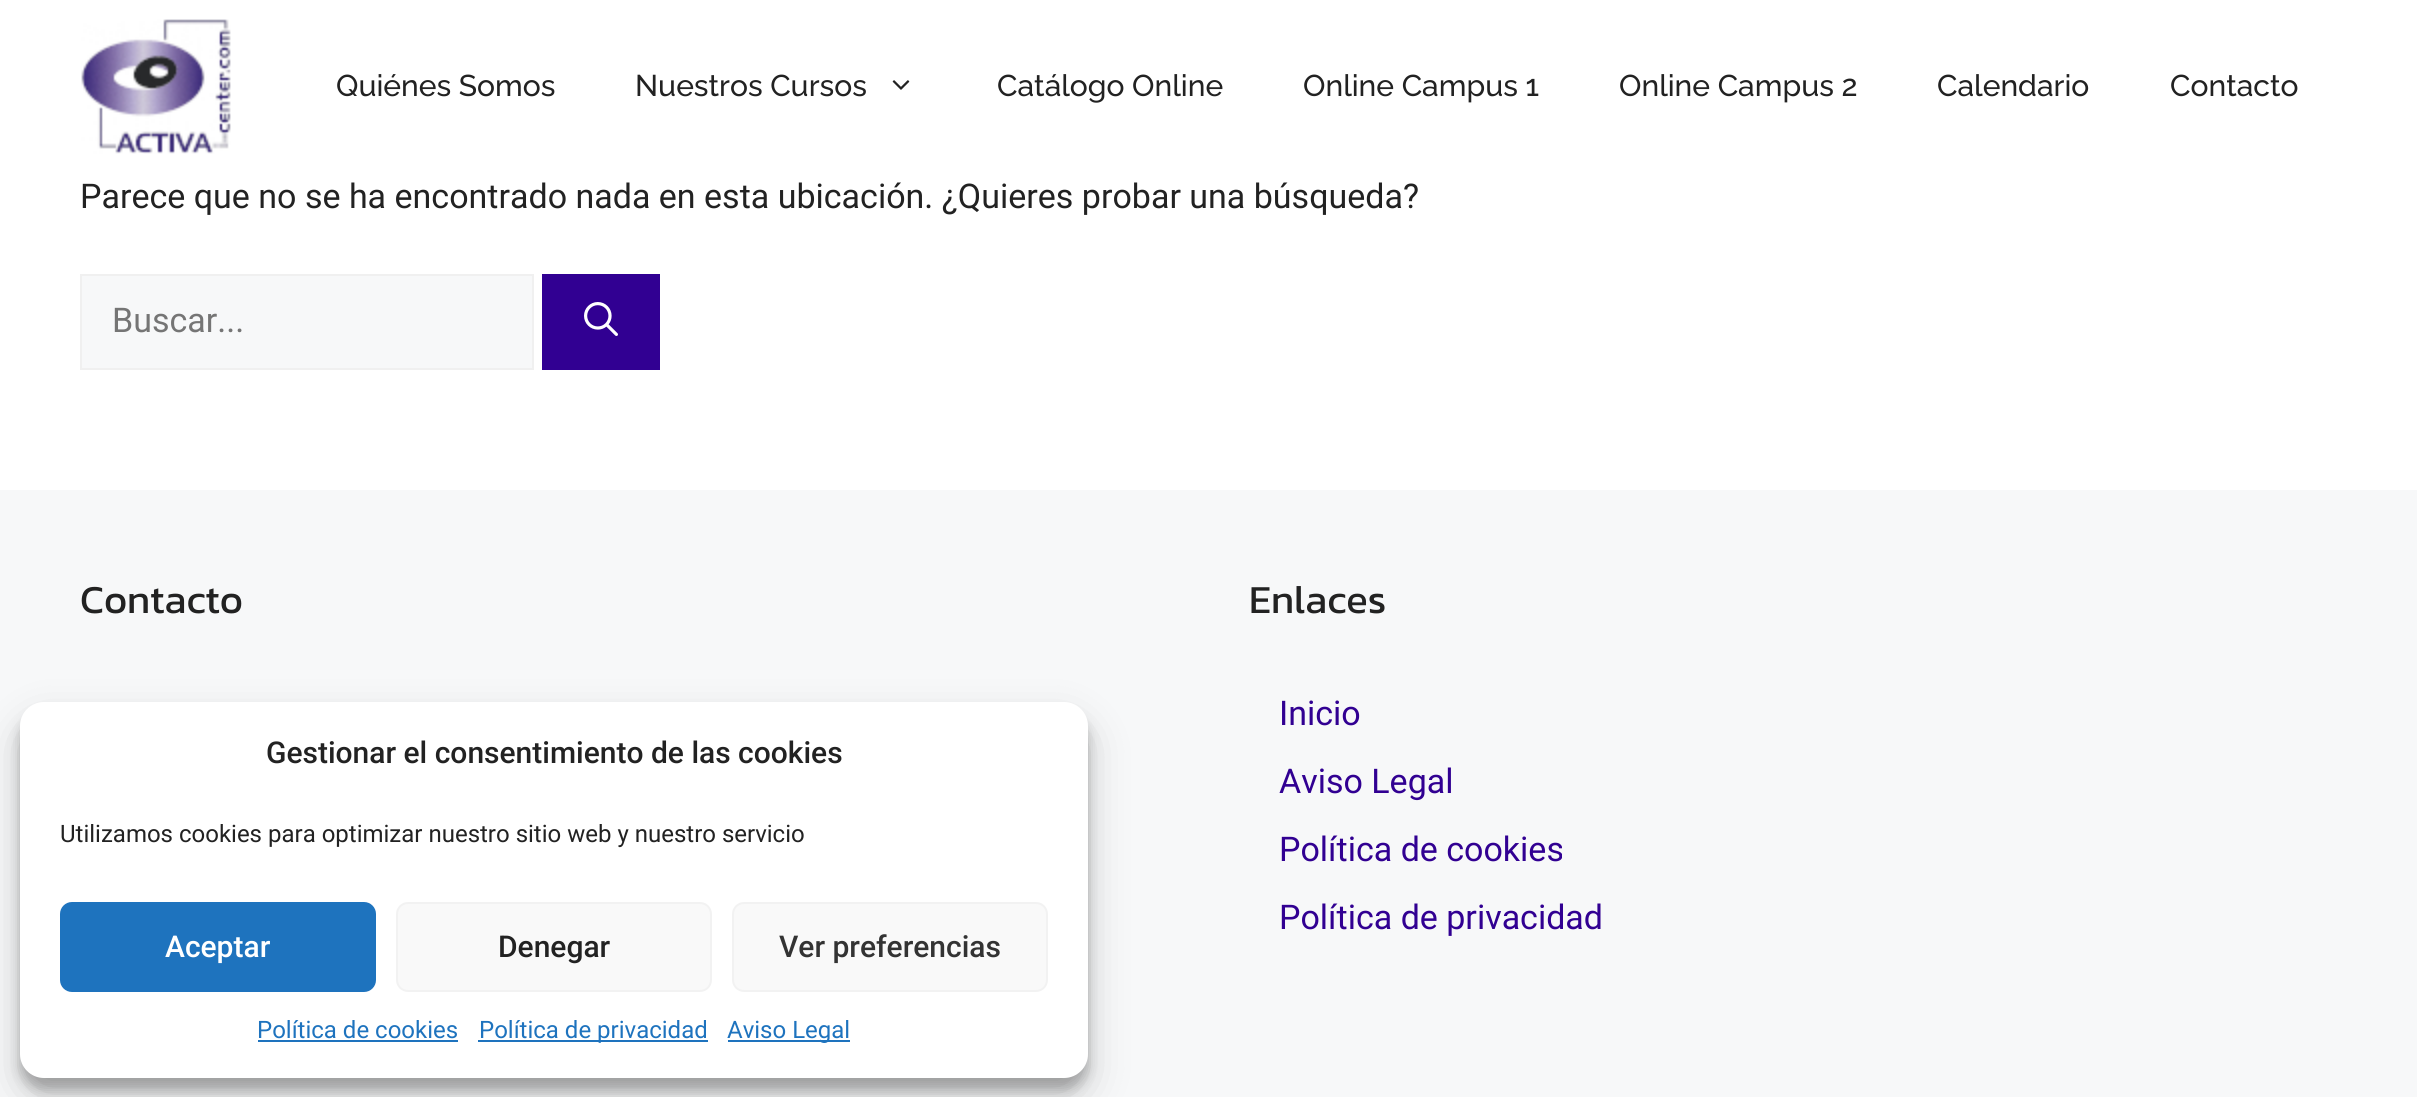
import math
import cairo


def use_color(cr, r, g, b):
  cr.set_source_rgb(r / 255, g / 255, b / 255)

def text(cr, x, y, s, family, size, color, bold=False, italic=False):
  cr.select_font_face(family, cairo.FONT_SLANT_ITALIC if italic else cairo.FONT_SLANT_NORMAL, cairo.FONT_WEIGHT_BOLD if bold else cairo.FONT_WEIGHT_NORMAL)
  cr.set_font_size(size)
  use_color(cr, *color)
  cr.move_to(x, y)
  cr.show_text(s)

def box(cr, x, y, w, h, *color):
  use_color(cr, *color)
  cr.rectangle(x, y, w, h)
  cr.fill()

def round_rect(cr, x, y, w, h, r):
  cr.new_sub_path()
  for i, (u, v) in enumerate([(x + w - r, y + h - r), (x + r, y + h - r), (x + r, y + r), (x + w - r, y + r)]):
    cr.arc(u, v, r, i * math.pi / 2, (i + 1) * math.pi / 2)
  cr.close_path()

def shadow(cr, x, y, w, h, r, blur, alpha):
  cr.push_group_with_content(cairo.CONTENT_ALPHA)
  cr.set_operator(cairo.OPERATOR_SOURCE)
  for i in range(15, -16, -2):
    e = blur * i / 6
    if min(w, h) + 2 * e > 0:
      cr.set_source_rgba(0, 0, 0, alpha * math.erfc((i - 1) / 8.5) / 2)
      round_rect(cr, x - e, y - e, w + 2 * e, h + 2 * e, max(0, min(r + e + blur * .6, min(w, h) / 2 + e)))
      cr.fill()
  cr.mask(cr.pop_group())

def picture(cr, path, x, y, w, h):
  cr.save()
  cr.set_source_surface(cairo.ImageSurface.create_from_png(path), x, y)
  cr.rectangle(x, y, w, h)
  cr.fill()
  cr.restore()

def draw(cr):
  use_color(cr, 255, 255, 255)
  cr.paint()
  picture(cr, "img_01.png", 81, 19, 150, 135)
  picture(cr, "img_02.png", 892, 80, 18, 10)
  use_color(cr, 247, 248, 249)
  cr.rectangle(81, 275, 452, 94)
  cr.fill_preserve()
  use_color(cr, 240, 240, 240)
  cr.stroke()
  box(cr, 542, 274, 118, 96, 49, 0, 146)
  picture(cr, "img_03.png", 584, 302, 34, 34)
  box(cr, 0, 490, 2417, 607, 247, 248, 249)
  use_color(cr, 0, 0, 0)
  shadow(cr, 20, 714, 1068, 376, 24, 6, 0.23)
  shadow(cr, 20, 722, 1068, 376, 24, 20, 0.19)
  use_color(cr, 255, 255, 255)
  round_rect(cr, 20, 702, 1068, 376, 24)
  cr.fill()
  use_color(cr, 30, 115, 190)
  round_rect(cr, 61, 903, 314, 88, 11)
  cr.fill_preserve()
  cr.stroke()
  use_color(cr, 249, 249, 249)
  round_rect(cr, 397, 903, 314, 88, 11)
  cr.fill_preserve()
  use_color(cr, 242, 242, 242)
  cr.stroke()
  use_color(cr, 249, 249, 249)
  round_rect(cr, 733, 903, 314, 88, 11)
  cr.fill_preserve()
  use_color(cr, 242, 242, 242)
  cr.stroke()
  box(cr, 258, 1040, 200, 2, 30, 115, 190)
  box(cr, 478, 1040, 230, 2, 30, 115, 190)
  box(cr, 728, 1040, 122, 2, 30, 115, 190)
  text(cr, 336, 96, "Quiénes Somos", "Raleway Medium", 30, (34, 34, 34))
  text(cr, 635, 96, "Nuestros Cursos", "Raleway Medium", 30, (34, 34, 34))
  text(cr, 997, 96, "Catálogo Online", "Raleway Medium", 30, (34, 34, 34))
  text(cr, 1303, 96, "Online Campus 1", "Raleway Medium", 30, (34, 34, 34))
  text(cr, 1619, 96, "Online Campus 2", "Raleway Medium", 30, (34, 34, 34))
  text(cr, 1937, 96, "Calendario", "Raleway Medium", 30, (34, 34, 34))
  text(cr, 2170, 96, "Contacto", "Raleway Medium", 30, (34, 34, 34))
  text(cr, 80, 208, "Parece que no se ha encontrado nada en esta ubicación. ¿Quieres probar una búsqueda?", "Roboto", 34, (34, 34, 34))
  text(cr, 112, 332, "Buscar...", "Roboto", 34, (117, 117, 117))
  text(cr, 80, 613, "Contacto", "Kanit", 40, (34, 34, 34))
  text(cr, 1249, 613, "Enlaces", "Kanit", 40, (34, 34, 34))
  text(cr, 1279, 725, "Inicio", "Roboto", 34, (49, 0, 146))
  text(cr, 1279, 793, "Aviso Legal", "Roboto", 34, (49, 0, 146))
  text(cr, 1279, 861, "Política de cookies", "Roboto", 34, (49, 0, 146))
  text(cr, 1279, 929, "Política de privacidad", "Roboto", 34, (49, 0, 146))
  text(cr, 266, 763, "Gestionar el consentimiento de las cookies", "Roboto Medium", 30, (34, 34, 34))
  text(cr, 60, 842, "Utilizamos cookies para optimizar nuestro sitio web y nuestro servicio", "Roboto", 24, (34, 34, 34))
  text(cr, 165, 957, "Aceptar", "Roboto Medium", 30, (255, 255, 255))
  text(cr, 498, 957, "Denegar", "Roboto Medium", 30, (34, 34, 34))
  text(cr, 779, 957, "Ver preferencias", "Roboto Medium", 30, (51, 51, 51))
  text(cr, 257, 1038, "Política de cookies", "Roboto", 24, (30, 115, 190))
  text(cr, 479, 1038, "Política de privacidad", "Roboto", 24, (30, 115, 190))
  text(cr, 727, 1038, "Aviso Legal", "Roboto", 24, (30, 115, 190))


surface = cairo.ImageSurface(cairo.FORMAT_RGB24, 2417, 1097)
cr = cairo.Context(surface)
options = cairo.FontOptions()
options.set_hint_metrics(cairo.HINT_METRICS_OFF)
options.set_hint_style(cairo.HINT_STYLE_NONE)
cr.set_font_options(options)
cr.set_miter_limit(4)
draw(cr)
surface.write_to_png("out.png")
